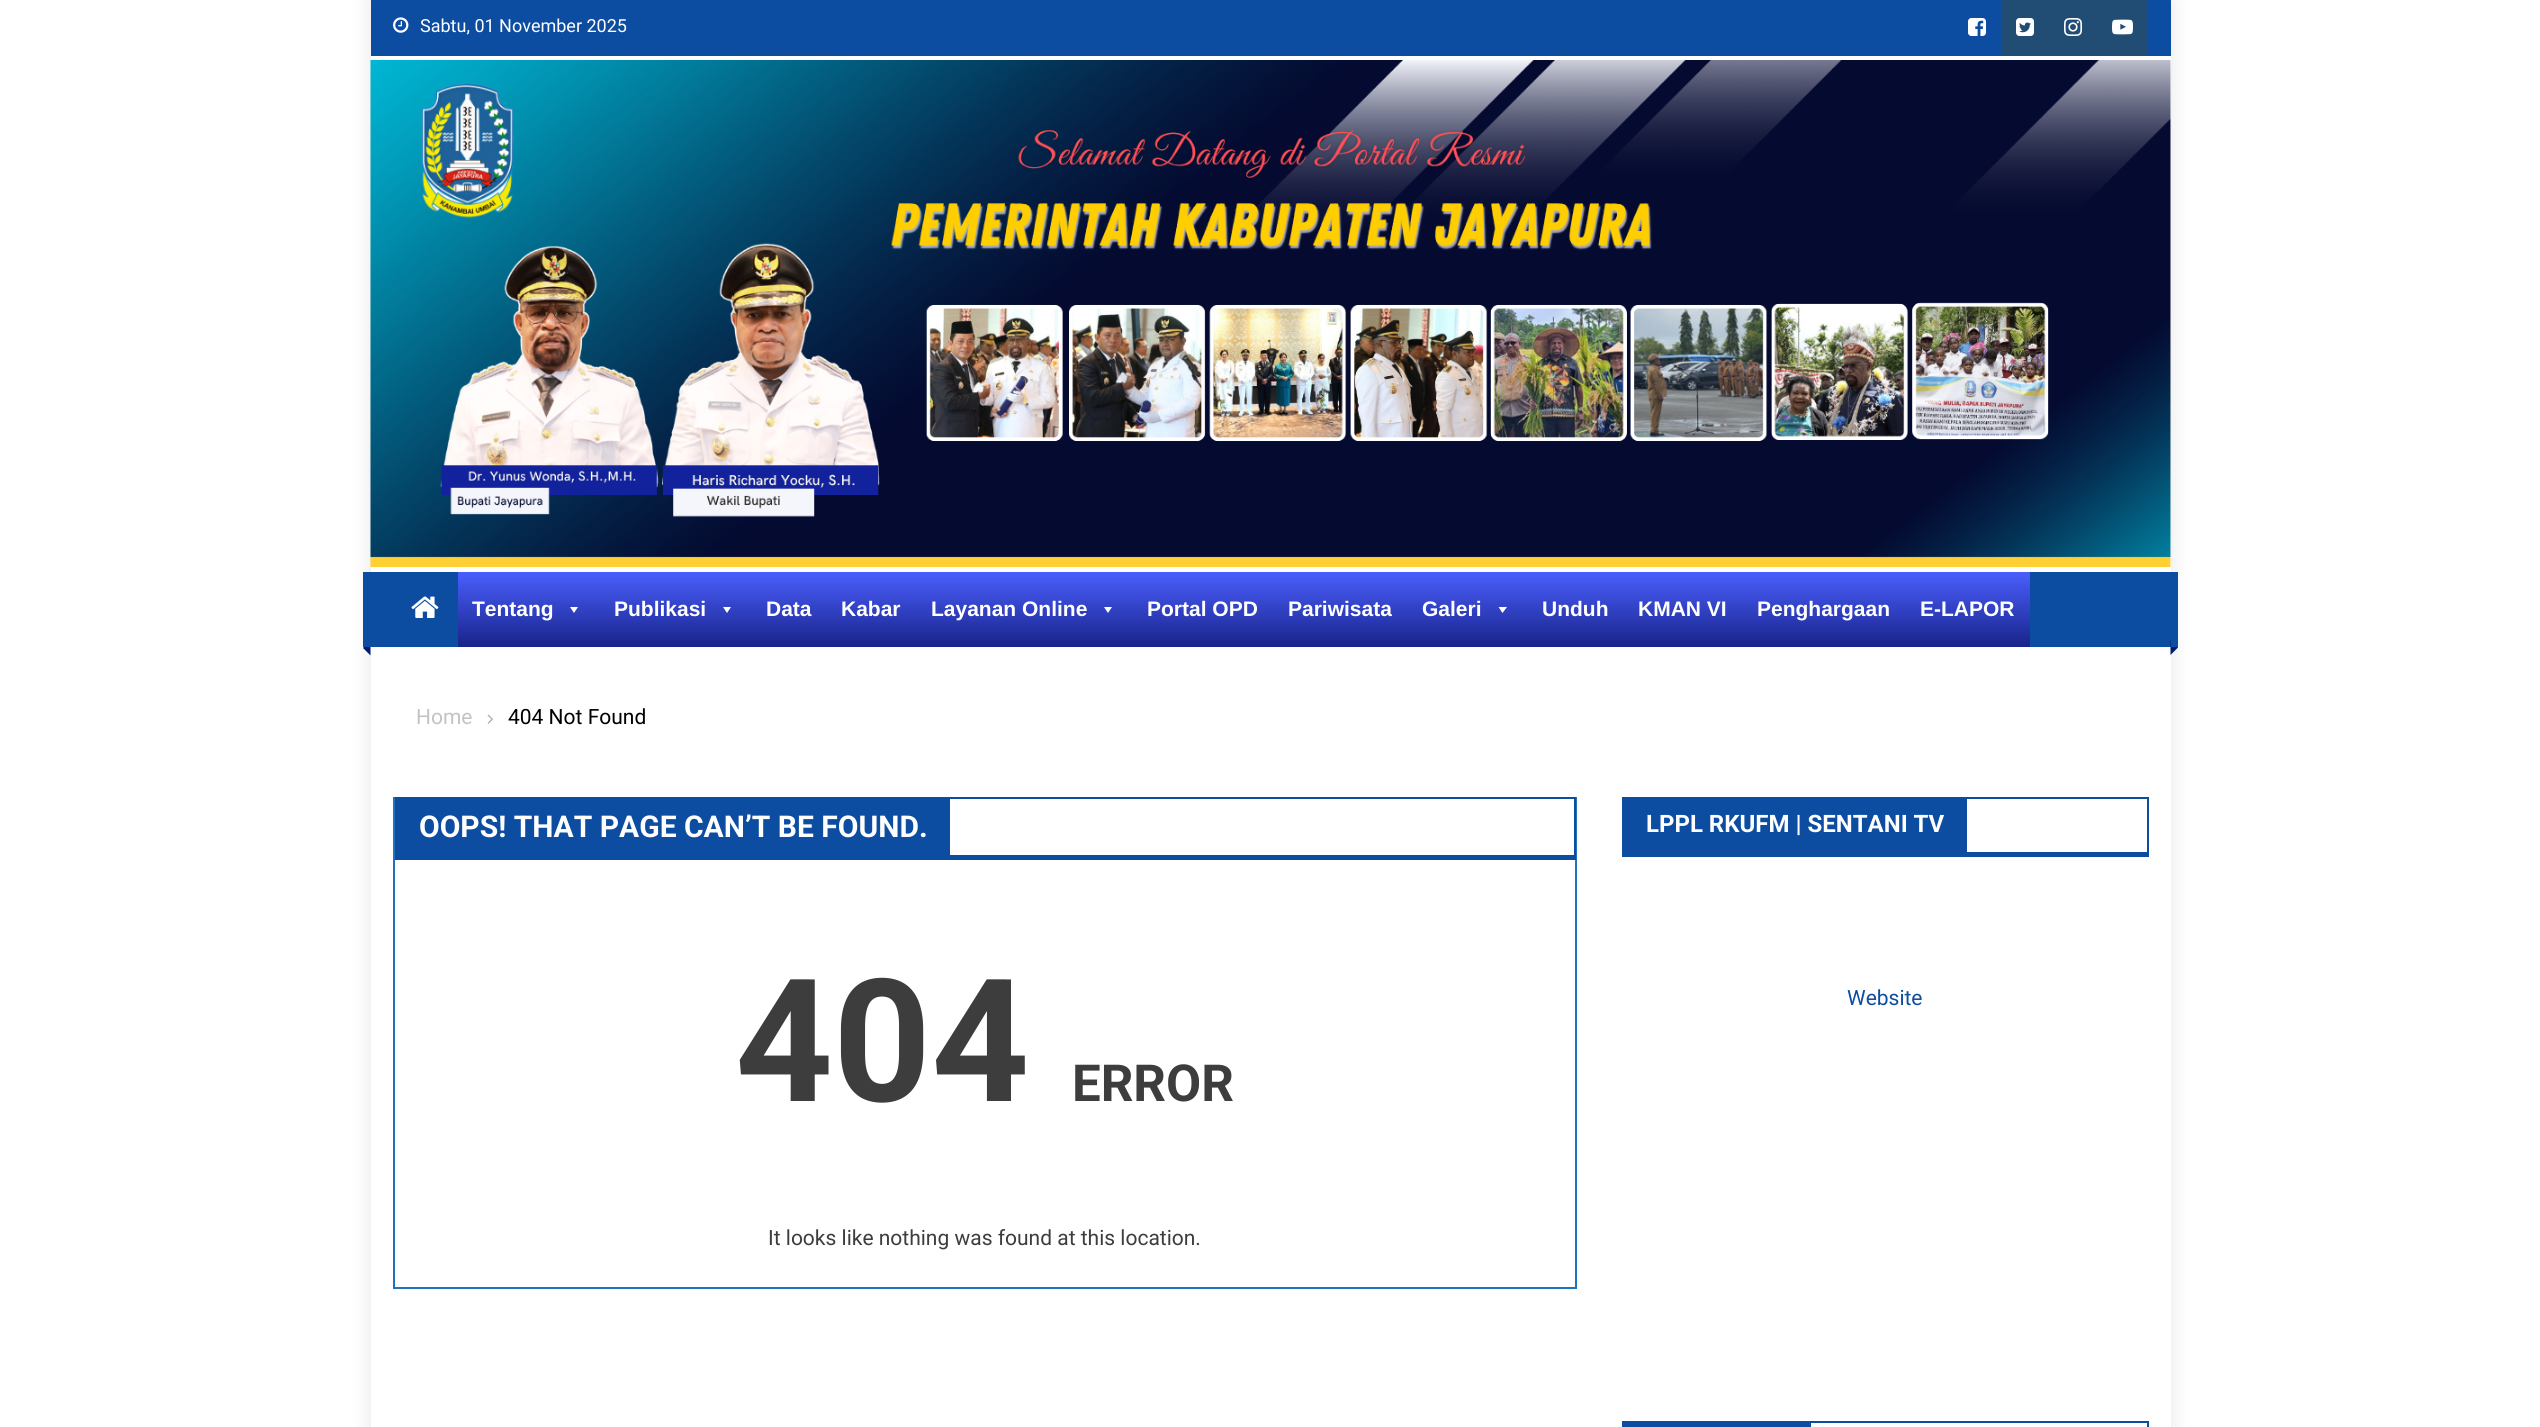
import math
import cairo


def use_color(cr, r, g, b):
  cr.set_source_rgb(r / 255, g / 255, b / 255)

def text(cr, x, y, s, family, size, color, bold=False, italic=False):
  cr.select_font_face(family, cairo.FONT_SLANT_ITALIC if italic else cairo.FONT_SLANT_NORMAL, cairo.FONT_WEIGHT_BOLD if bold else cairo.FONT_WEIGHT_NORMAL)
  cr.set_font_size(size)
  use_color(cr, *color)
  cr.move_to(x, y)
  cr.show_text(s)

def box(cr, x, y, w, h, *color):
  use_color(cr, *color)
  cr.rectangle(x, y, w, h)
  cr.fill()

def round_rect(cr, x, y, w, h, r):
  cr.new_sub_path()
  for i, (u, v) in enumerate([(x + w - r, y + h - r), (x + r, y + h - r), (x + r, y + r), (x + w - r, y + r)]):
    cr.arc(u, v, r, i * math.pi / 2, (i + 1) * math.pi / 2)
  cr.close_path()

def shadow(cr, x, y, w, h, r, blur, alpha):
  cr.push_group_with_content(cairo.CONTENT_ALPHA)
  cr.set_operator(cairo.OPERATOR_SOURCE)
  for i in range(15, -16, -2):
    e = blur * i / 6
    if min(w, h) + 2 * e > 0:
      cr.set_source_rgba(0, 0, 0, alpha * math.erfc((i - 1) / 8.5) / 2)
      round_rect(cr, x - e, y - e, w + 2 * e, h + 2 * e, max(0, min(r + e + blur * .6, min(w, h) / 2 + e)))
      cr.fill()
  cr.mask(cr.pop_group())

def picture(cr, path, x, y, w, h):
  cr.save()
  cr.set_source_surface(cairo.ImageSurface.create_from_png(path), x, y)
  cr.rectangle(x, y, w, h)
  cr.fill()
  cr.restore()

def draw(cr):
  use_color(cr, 255, 255, 255)
  cr.paint()
  use_color(cr, 0, 0, 0)
  shadow(cr, 371, 0, 1800, 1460, 0, 11, 0.1)
  box(cr, 371, 56, 1800, 1371, 255, 255, 255)
  box(cr, 371, 0, 1800, 56, 12, 77, 162)
  picture(cr, "img_01.png", 393, 17, 16, 16)
  picture(cr, "img_02.png", 1968, 18, 18, 18)
  box(cr, 2001, 0, 147, 56, 33, 77, 116)
  picture(cr, "img_03.png", 2016, 18, 18, 18)
  picture(cr, "img_04.png", 2064, 18, 18, 18)
  picture(cr, "img_05.png", 2112, 19, 21, 16)
  picture(cr, "img_06.png", 370, 60, 1801, 507)
  box(cr, 371, 572, 1800, 75, 12, 77, 162)
  use_color(cr, 0, 27, 112)
  cr.new_path()
  cr.move_to(370.5, 640.5)
  cr.line_to(370.5, 655.5)
  cr.line_to(363, 648)
  cr.close_path()
  cr.fill()
  box(cr, 363, 572, 8, 75, 12, 77, 162)
  picture(cr, "img_07.png", 411, 596, 28, 22)
  gradient = cairo.LinearGradient(1244, 571, 1244, 647)
  gradient.add_color_stop_rgba(0, 0.294, 0.373, 1, 1)
  gradient.add_color_stop_rgba(1, 0.094, 0.141, 0.541, 1)
  cr.set_source(gradient)
  cr.rectangle(458, 572, 1572, 75)
  cr.fill()
  use_color(cr, 255, 255, 255)
  cr.new_path()
  cr.move_to(578, 607)
  cr.line_to(574, 613)
  cr.line_to(570, 607)
  cr.close_path()
  cr.fill()
  cr.new_path()
  cr.move_to(731, 607)
  cr.line_to(727, 613)
  cr.line_to(723, 607)
  cr.close_path()
  cr.fill()
  cr.new_path()
  cr.move_to(1112, 607)
  cr.line_to(1108, 613)
  cr.line_to(1104, 607)
  cr.close_path()
  cr.fill()
  cr.new_path()
  cr.move_to(1507, 607)
  cr.line_to(1502.5, 613)
  cr.line_to(1498.5, 607)
  cr.close_path()
  cr.fill()
  use_color(cr, 0, 27, 112)
  cr.new_path()
  cr.move_to(2170.5, 655)
  cr.line_to(2170.5, 640)
  cr.line_to(2178, 647.5)
  cr.close_path()
  cr.fill()
  box(cr, 2171, 572, 7, 75, 12, 77, 162)
  picture(cr, "img_08.png", 487, 714, 6, 10)
  box(cr, 1575, 797, 2, 492, 30, 115, 190)
  box(cr, 393, 1287, 1184, 2, 30, 115, 190)
  box(cr, 393, 797, 2, 492, 30, 115, 190)
  box(cr, 395, 797, 1180, 2, 12, 77, 162)
  box(cr, 1574, 797, 2, 63, 12, 77, 162)
  box(cr, 395, 855, 1180, 5, 12, 77, 162)
  box(cr, 395, 797, 2, 63, 12, 77, 162)
  box(cr, 397, 799, 553, 56, 12, 77, 162)
  box(cr, 1622, 797, 526, 2, 12, 77, 162)
  box(cr, 2147, 797, 2, 60, 12, 77, 162)
  box(cr, 1622, 852, 526, 5, 12, 77, 162)
  box(cr, 1622, 797, 2, 60, 12, 77, 162)
  box(cr, 1624, 799, 343, 53, 12, 77, 162)
  box(cr, 1622, 1421, 526, 2, 12, 77, 162)
  box(cr, 2147, 1421, 2, 6, 12, 77, 162)
  box(cr, 1622, 1421, 2, 6, 12, 77, 162)
  box(cr, 1623, 1423, 188, 4, 12, 77, 162)
  text(cr, 420, 32, "Sabtu, 01 November 2025", "Roboto", 18, (255, 255, 255))
  text(cr, 472, 616, "Tentang", "Liberation Sans", 21, (255, 255, 255), bold=True)
  text(cr, 614, 616, "Publikasi", "Liberation Sans", 21, (255, 255, 255), bold=True)
  text(cr, 766, 616, "Data", "Liberation Sans", 21, (255, 255, 255), bold=True)
  text(cr, 841, 616, "Kabar", "Liberation Sans", 21, (255, 255, 255), bold=True)
  text(cr, 931, 616, "Layanan Online", "Liberation Sans", 21, (255, 255, 255), bold=True)
  text(cr, 1147, 616, "Portal OPD", "Liberation Sans", 21, (255, 255, 255), bold=True)
  text(cr, 1288, 616, "Pariwisata", "Liberation Sans", 21, (255, 255, 255), bold=True)
  text(cr, 1422, 616, "Galeri", "Liberation Sans", 21, (255, 255, 255), bold=True)
  text(cr, 1542, 616, "Unduh", "Liberation Sans", 21, (255, 255, 255), bold=True)
  text(cr, 1638, 616, "KMAN VI", "Liberation Sans", 21, (255, 255, 255), bold=True)
  text(cr, 1757, 616, "Penghargaan", "Liberation Sans", 21, (255, 255, 255), bold=True)
  text(cr, 1920, 616, "E-LAPOR", "Liberation Sans", 21, (255, 255, 255), bold=True)
  text(cr, 416, 724, "Home", "Roboto", 21, (195, 195, 195))
  text(cr, 508, 724, "404 Not Found", "Roboto", 21, (0, 0, 0))
  text(cr, 419, 837, "OOPS! THAT PAGE CAN’T BE FOUND.", "Roboto", 30, (255, 255, 255), bold=True)
  text(cr, 735, 1101, "404", "Roboto", 171, (61, 61, 61), bold=True)
  text(cr, 1072, 1101, "ERROR", "Roboto", 51, (61, 61, 61), bold=True)
  text(cr, 768, 1245, "It looks like nothing was found at this location.", "Roboto", 21, (61, 61, 61))
  text(cr, 1646, 832, "LPPL RKUFM | SENTANI TV", "Roboto", 24, (255, 255, 255), bold=True)
  text(cr, 1847, 1005, "Website", "Roboto", 21, (12, 77, 162))


surface = cairo.ImageSurface(cairo.FORMAT_RGB24, 2540, 1427)
cr = cairo.Context(surface)
options = cairo.FontOptions()
options.set_hint_metrics(cairo.HINT_METRICS_OFF)
options.set_hint_style(cairo.HINT_STYLE_NONE)
cr.set_font_options(options)
cr.set_miter_limit(4)
draw(cr)
surface.write_to_png("out.png")
